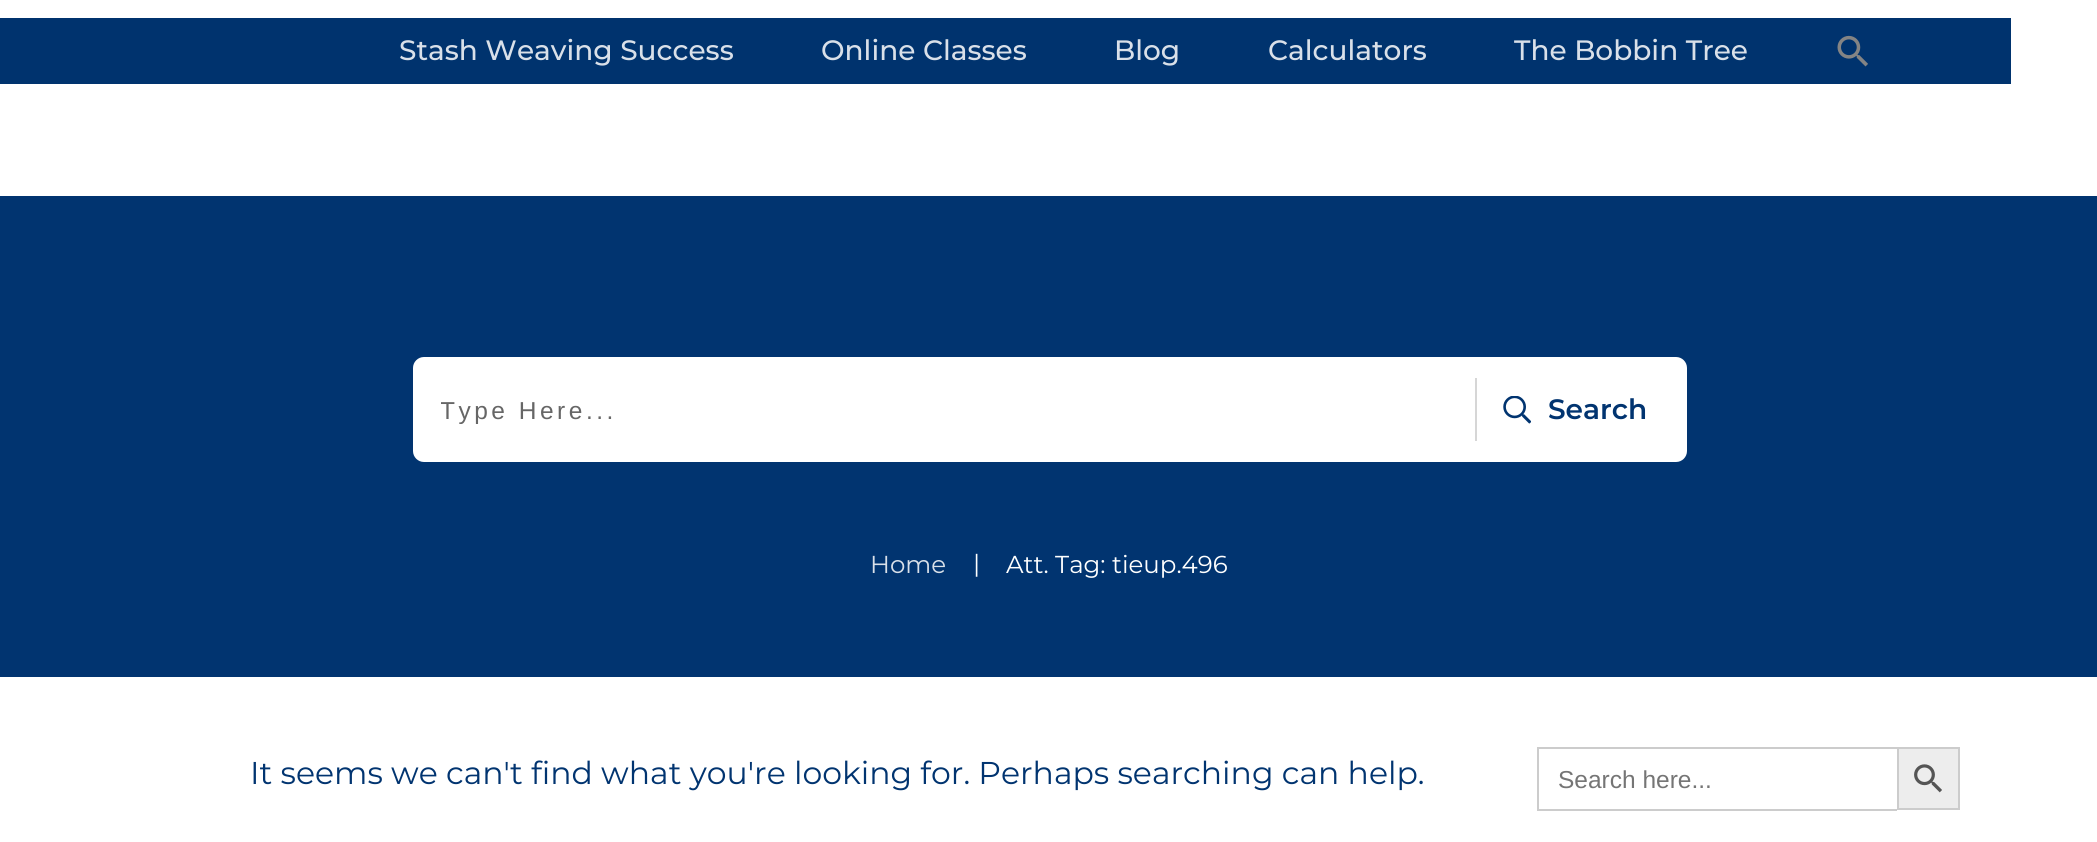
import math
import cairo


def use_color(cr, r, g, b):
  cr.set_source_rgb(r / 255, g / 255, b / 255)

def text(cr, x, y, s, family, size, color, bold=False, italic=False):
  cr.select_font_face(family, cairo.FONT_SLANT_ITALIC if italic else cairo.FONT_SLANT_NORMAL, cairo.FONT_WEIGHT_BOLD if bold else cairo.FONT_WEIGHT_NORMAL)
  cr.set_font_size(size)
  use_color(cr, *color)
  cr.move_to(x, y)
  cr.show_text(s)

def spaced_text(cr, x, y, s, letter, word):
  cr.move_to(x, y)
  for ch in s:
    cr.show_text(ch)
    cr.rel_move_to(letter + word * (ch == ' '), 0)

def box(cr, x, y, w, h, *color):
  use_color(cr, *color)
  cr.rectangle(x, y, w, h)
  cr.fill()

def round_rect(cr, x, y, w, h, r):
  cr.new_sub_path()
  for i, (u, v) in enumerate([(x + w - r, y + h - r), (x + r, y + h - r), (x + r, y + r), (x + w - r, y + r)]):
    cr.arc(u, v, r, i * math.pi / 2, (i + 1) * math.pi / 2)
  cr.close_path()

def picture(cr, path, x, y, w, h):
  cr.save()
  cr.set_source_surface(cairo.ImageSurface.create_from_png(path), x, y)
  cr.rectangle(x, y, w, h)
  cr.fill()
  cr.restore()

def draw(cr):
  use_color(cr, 255, 255, 255)
  cr.paint()
  box(cr, 0, 18, 2011, 66, 0, 51, 110)
  picture(cr, "img_01.png", 1837, 35, 31, 32)
  box(cr, 0, 196, 2097, 481, 1, 52, 112)
  use_color(cr, 255, 255, 255)
  round_rect(cr, 413, 357, 1274, 105, 11)
  cr.fill()
  box(cr, 1475, 378, 2, 63, 214, 214, 214)
  picture(cr, "img_02.png", 1503, 396, 28, 28)
  box(cr, 1537, 747, 360, 2, 204, 204, 204)
  box(cr, 1537, 809, 360, 2, 204, 204, 204)
  box(cr, 1537, 747, 2, 63, 204, 204, 204)
  use_color(cr, 237, 237, 237)
  cr.rectangle(1898, 748, 61, 61)
  cr.fill_preserve()
  use_color(cr, 204, 204, 204)
  cr.stroke()
  picture(cr, "img_03.png", 1914, 764, 28, 29)
  text(cr, 399, 60, "Stash Weaving Success", "Montserrat Medium", 28, (217, 224, 233))
  text(cr, 821, 60, "Online Classes", "Montserrat Medium", 28, (217, 224, 233))
  text(cr, 1114, 60, "Blog", "Montserrat Medium", 28, (217, 224, 233))
  text(cr, 1268, 60, "Calculators", "Montserrat Medium", 28, (217, 224, 233))
  text(cr, 1514, 60, "The Bobbin Tree", "Montserrat Medium", 28, (217, 224, 233))
  cr.save()
  cr.rectangle(441, 396, 1020, 28)
  cr.clip()
  cr.select_font_face("Liberation Sans")
  cr.set_font_size(24.5)
  use_color(cr, 102, 102, 102)
  spaced_text(cr, 440, 419, "Type Here...", 3.5, 0)
  cr.restore()
  text(cr, 1548, 419, "Search", "Montserrat SemiBold", 28, (1, 52, 112))
  text(cr, 870, 573, "Home", "Montserrat", 24.5, (217, 224, 233))
  text(cr, 973, 572, "|", "Montserrat", 24.5, (255, 255, 255))
  text(cr, 1006, 573, "Att. Tag: tieup.496", "Montserrat", 24.5, (255, 255, 255))
  text(cr, 250, 784, "It seems we can't find what you're looking for. Perhaps searching can help.", "Montserrat", 31.5, (1, 52, 112))
  text(cr, 1558, 788, "Search here...", "Liberation Sans", 24.5, (117, 117, 117))


surface = cairo.ImageSurface(cairo.FORMAT_RGB24, 2097, 842)
cr = cairo.Context(surface)
options = cairo.FontOptions()
options.set_hint_metrics(cairo.HINT_METRICS_OFF)
options.set_hint_style(cairo.HINT_STYLE_NONE)
cr.set_font_options(options)
cr.set_miter_limit(4)
draw(cr)
surface.write_to_png("out.png")
